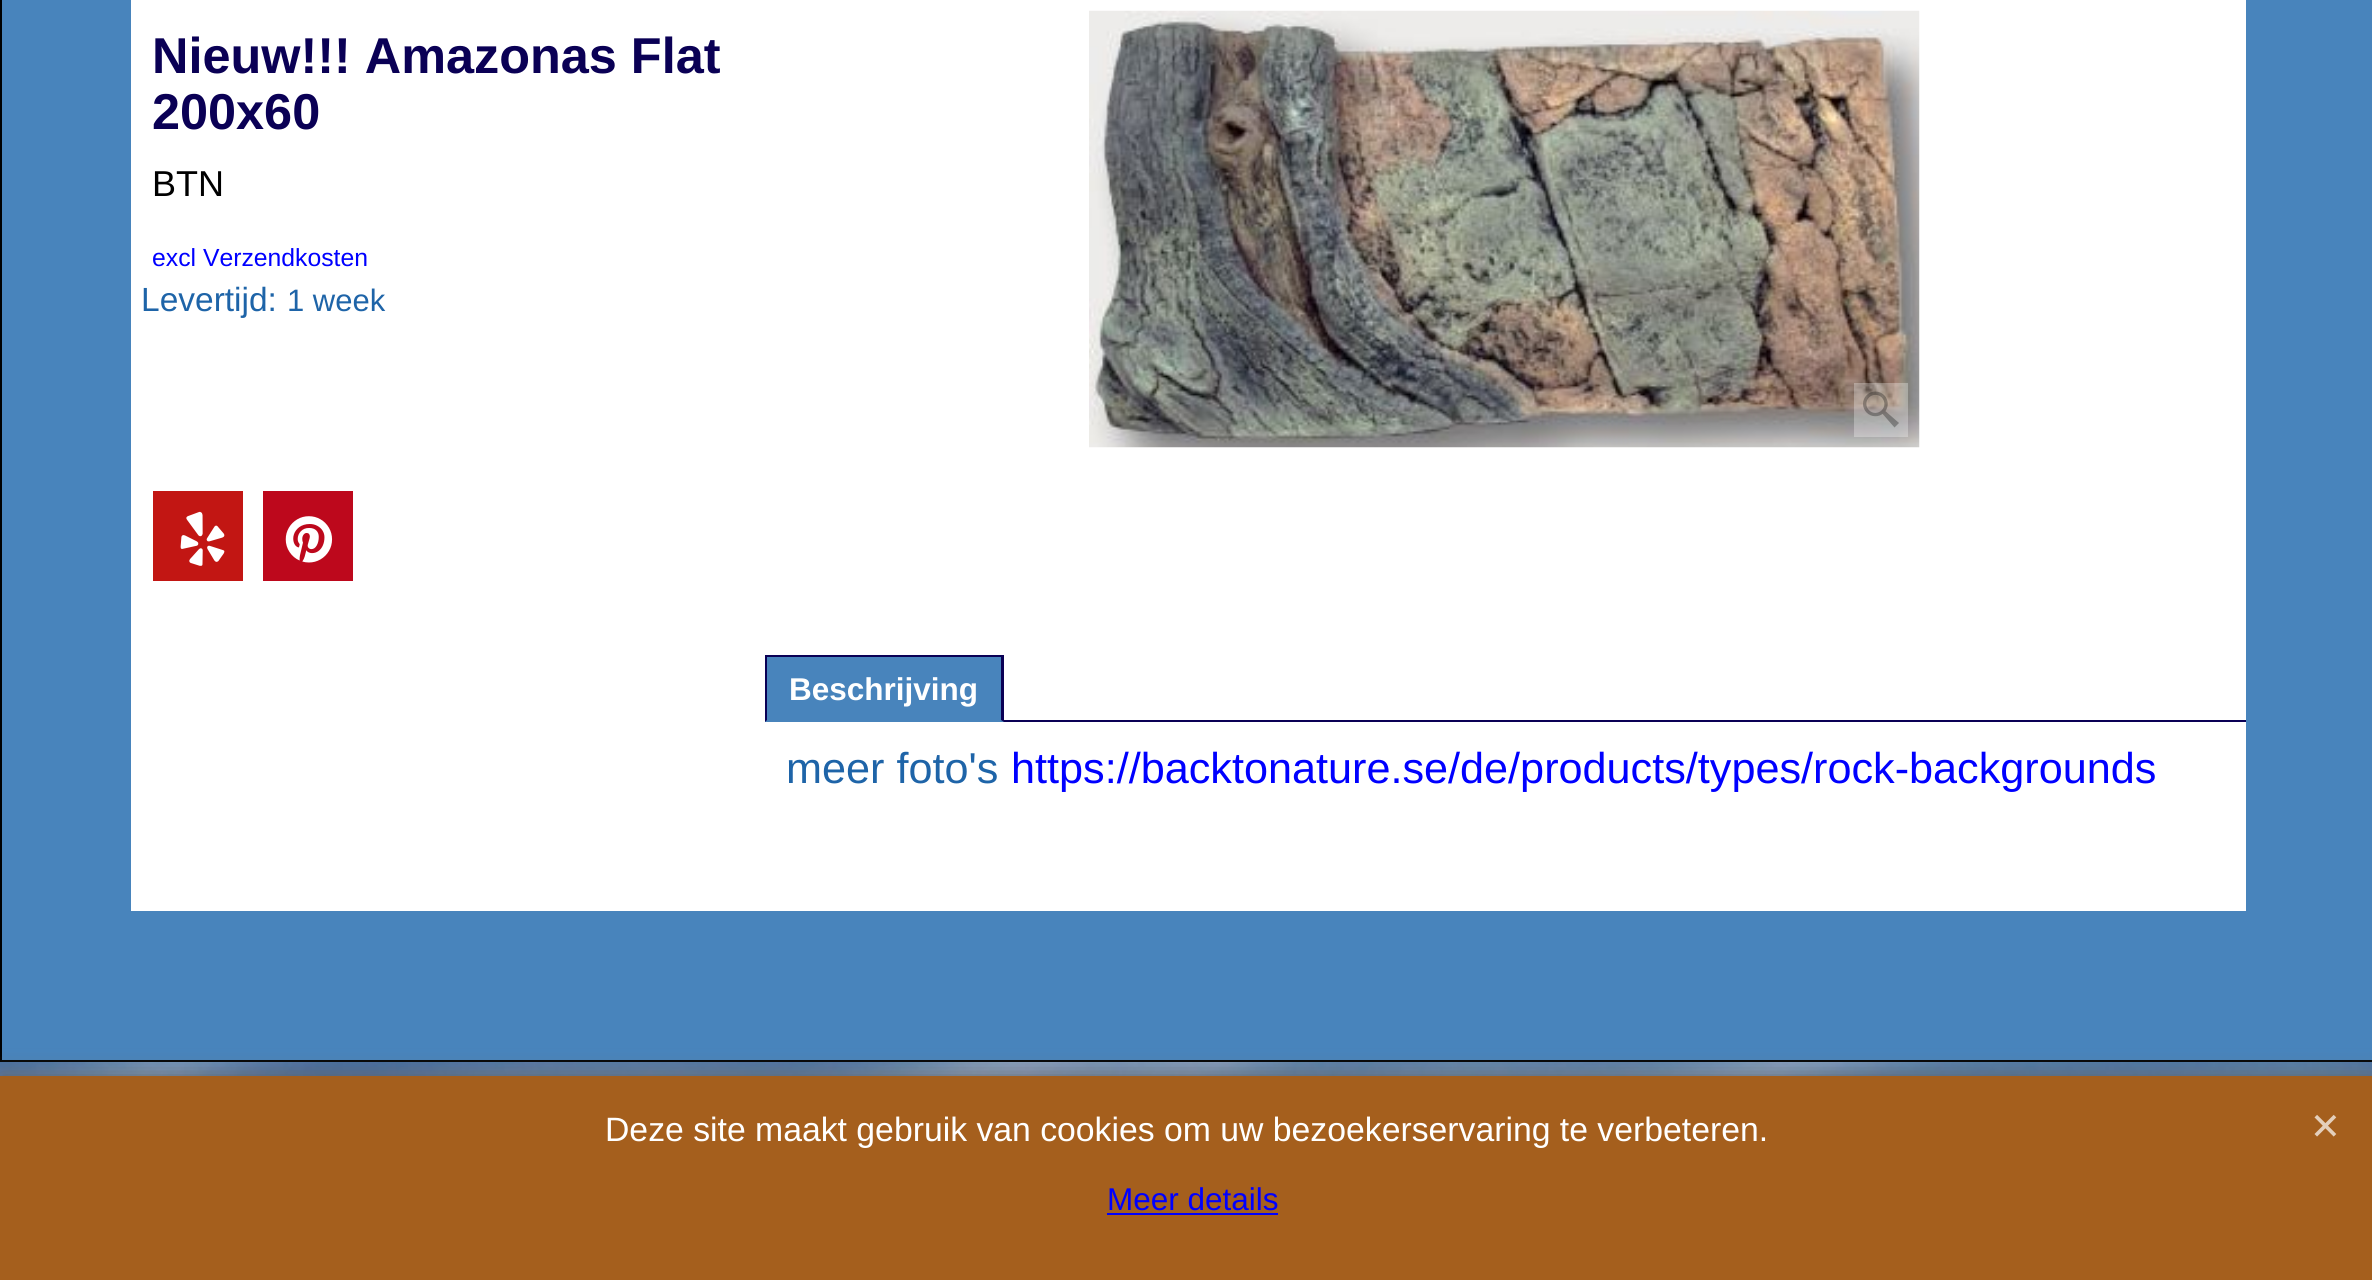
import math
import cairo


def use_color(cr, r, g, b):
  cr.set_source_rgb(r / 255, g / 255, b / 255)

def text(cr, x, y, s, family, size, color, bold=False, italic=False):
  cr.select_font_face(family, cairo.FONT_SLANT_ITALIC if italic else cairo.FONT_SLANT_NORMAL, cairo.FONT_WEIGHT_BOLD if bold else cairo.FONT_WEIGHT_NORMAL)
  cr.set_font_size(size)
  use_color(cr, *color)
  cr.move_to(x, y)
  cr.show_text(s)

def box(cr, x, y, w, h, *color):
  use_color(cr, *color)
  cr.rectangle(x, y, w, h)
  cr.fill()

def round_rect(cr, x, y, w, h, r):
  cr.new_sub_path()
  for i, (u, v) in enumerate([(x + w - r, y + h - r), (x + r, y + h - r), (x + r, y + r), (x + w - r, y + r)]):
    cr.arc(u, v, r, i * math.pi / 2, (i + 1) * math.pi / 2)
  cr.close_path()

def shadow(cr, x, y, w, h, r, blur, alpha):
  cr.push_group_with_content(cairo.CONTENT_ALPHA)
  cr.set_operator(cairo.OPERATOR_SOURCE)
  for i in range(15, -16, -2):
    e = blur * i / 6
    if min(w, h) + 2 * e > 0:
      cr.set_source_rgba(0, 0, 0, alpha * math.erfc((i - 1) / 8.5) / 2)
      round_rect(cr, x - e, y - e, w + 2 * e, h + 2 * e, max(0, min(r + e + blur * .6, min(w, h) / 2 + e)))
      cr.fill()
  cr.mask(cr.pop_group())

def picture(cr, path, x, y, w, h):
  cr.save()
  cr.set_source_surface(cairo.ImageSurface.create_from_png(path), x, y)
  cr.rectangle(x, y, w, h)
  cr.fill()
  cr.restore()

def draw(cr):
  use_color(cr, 255, 255, 255)
  cr.paint()
  picture(cr, "img_01.png", 0, 1062, 2372, 14)
  use_color(cr, 72, 132, 188)
  cr.rectangle(1, -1, 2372, 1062)
  cr.fill_preserve()
  use_color(cr, 0, 0, 0)
  cr.stroke()
  box(cr, 131, 0, 2115, 911, 255, 255, 255)
  picture(cr, "img_02.png", 1089, 10, 831, 438)
  cr.set_source_rgba(1, 1, 1, 0.3)
  cr.rectangle(1854, 383, 54, 54)
  cr.fill()
  picture(cr, "img_03.png", 1863, 391, 36, 37)
  box(cr, 153, 491, 90, 90, 194, 22, 19)
  picture(cr, "img_04.png", 180, 511, 45, 55)
  box(cr, 263, 491, 90, 90, 189, 8, 28)
  picture(cr, "img_05.png", 285, 516, 48, 47)
  box(cr, 765, 657, 239, 65, 72, 132, 188)
  box(cr, 765, 655, 239, 2, 10, 0, 85)
  cr.new_path()
  cr.move_to(1004, 655)
  cr.line_to(1004, 722)
  cr.line_to(1001, 720)
  cr.line_to(1001, 657)
  cr.close_path()
  cr.fill()
  cr.new_path()
  cr.move_to(765, 722)
  cr.line_to(765, 655)
  cr.line_to(767, 657)
  cr.line_to(767, 720)
  cr.close_path()
  cr.fill()
  box(cr, 1004, 720, 1242, 2, 10, 0, 85)
  use_color(cr, 102, 102, 102)
  shadow(cr, 0, 1076, 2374, 204, 0, 11, 1)
  box(cr, 0, 1076, 2372, 204, 165, 95, 29)
  box(cr, 1107, 1213, 171, 2, 0, 0, 255)
  picture(cr, "img_06.png", 2314, 1114, 23, 23)
  text(cr, 152, 73, "Nieuw!!! Amazonas Flat", "Liberation Sans", 50.4, (10, 0, 85), bold=True)
  text(cr, 152, 129, "200x60", "Liberation Sans", 50.4, (10, 0, 85), bold=True)
  text(cr, 152, 196, "BTN", "Liberation Sans", 36, (0, 0, 0))
  text(cr, 152, 266, "excl Verzendkosten", "Liberation Sans", 24.75, (0, 0, 255))
  text(cr, 141, 311, "Levertijd:", "Liberation Sans", 33.5, (30, 100, 168))
  text(cr, 287, 311, "1 week", "Liberation Sans", 31, (30, 100, 168))
  text(cr, 789, 700, "Beschrijving", "Liberation Sans", 31.5, (255, 255, 255), bold=True)
  text(cr, 786, 783, "meer foto's", "Liberation Sans", 43.2, (30, 100, 168))
  text(cr, 1011, 783, "https://backtonature.se/de/products/types/rock-backgrounds", "Liberation Sans", 43.2, (0, 0, 255))
  text(cr, 605, 1141, "Deze site maakt gebruik van cookies om uw bezoekerservaring te verbeteren.", "Liberation Sans", 33.75, (255, 255, 255))
  text(cr, 1107, 1210, "Meer details", "Liberation Sans", 31.5, (0, 0, 255))


surface = cairo.ImageSurface(cairo.FORMAT_RGB24, 2372, 1280)
cr = cairo.Context(surface)
options = cairo.FontOptions()
options.set_hint_metrics(cairo.HINT_METRICS_OFF)
options.set_hint_style(cairo.HINT_STYLE_NONE)
cr.set_font_options(options)
cr.set_miter_limit(4)
draw(cr)
surface.write_to_png("out.png")
